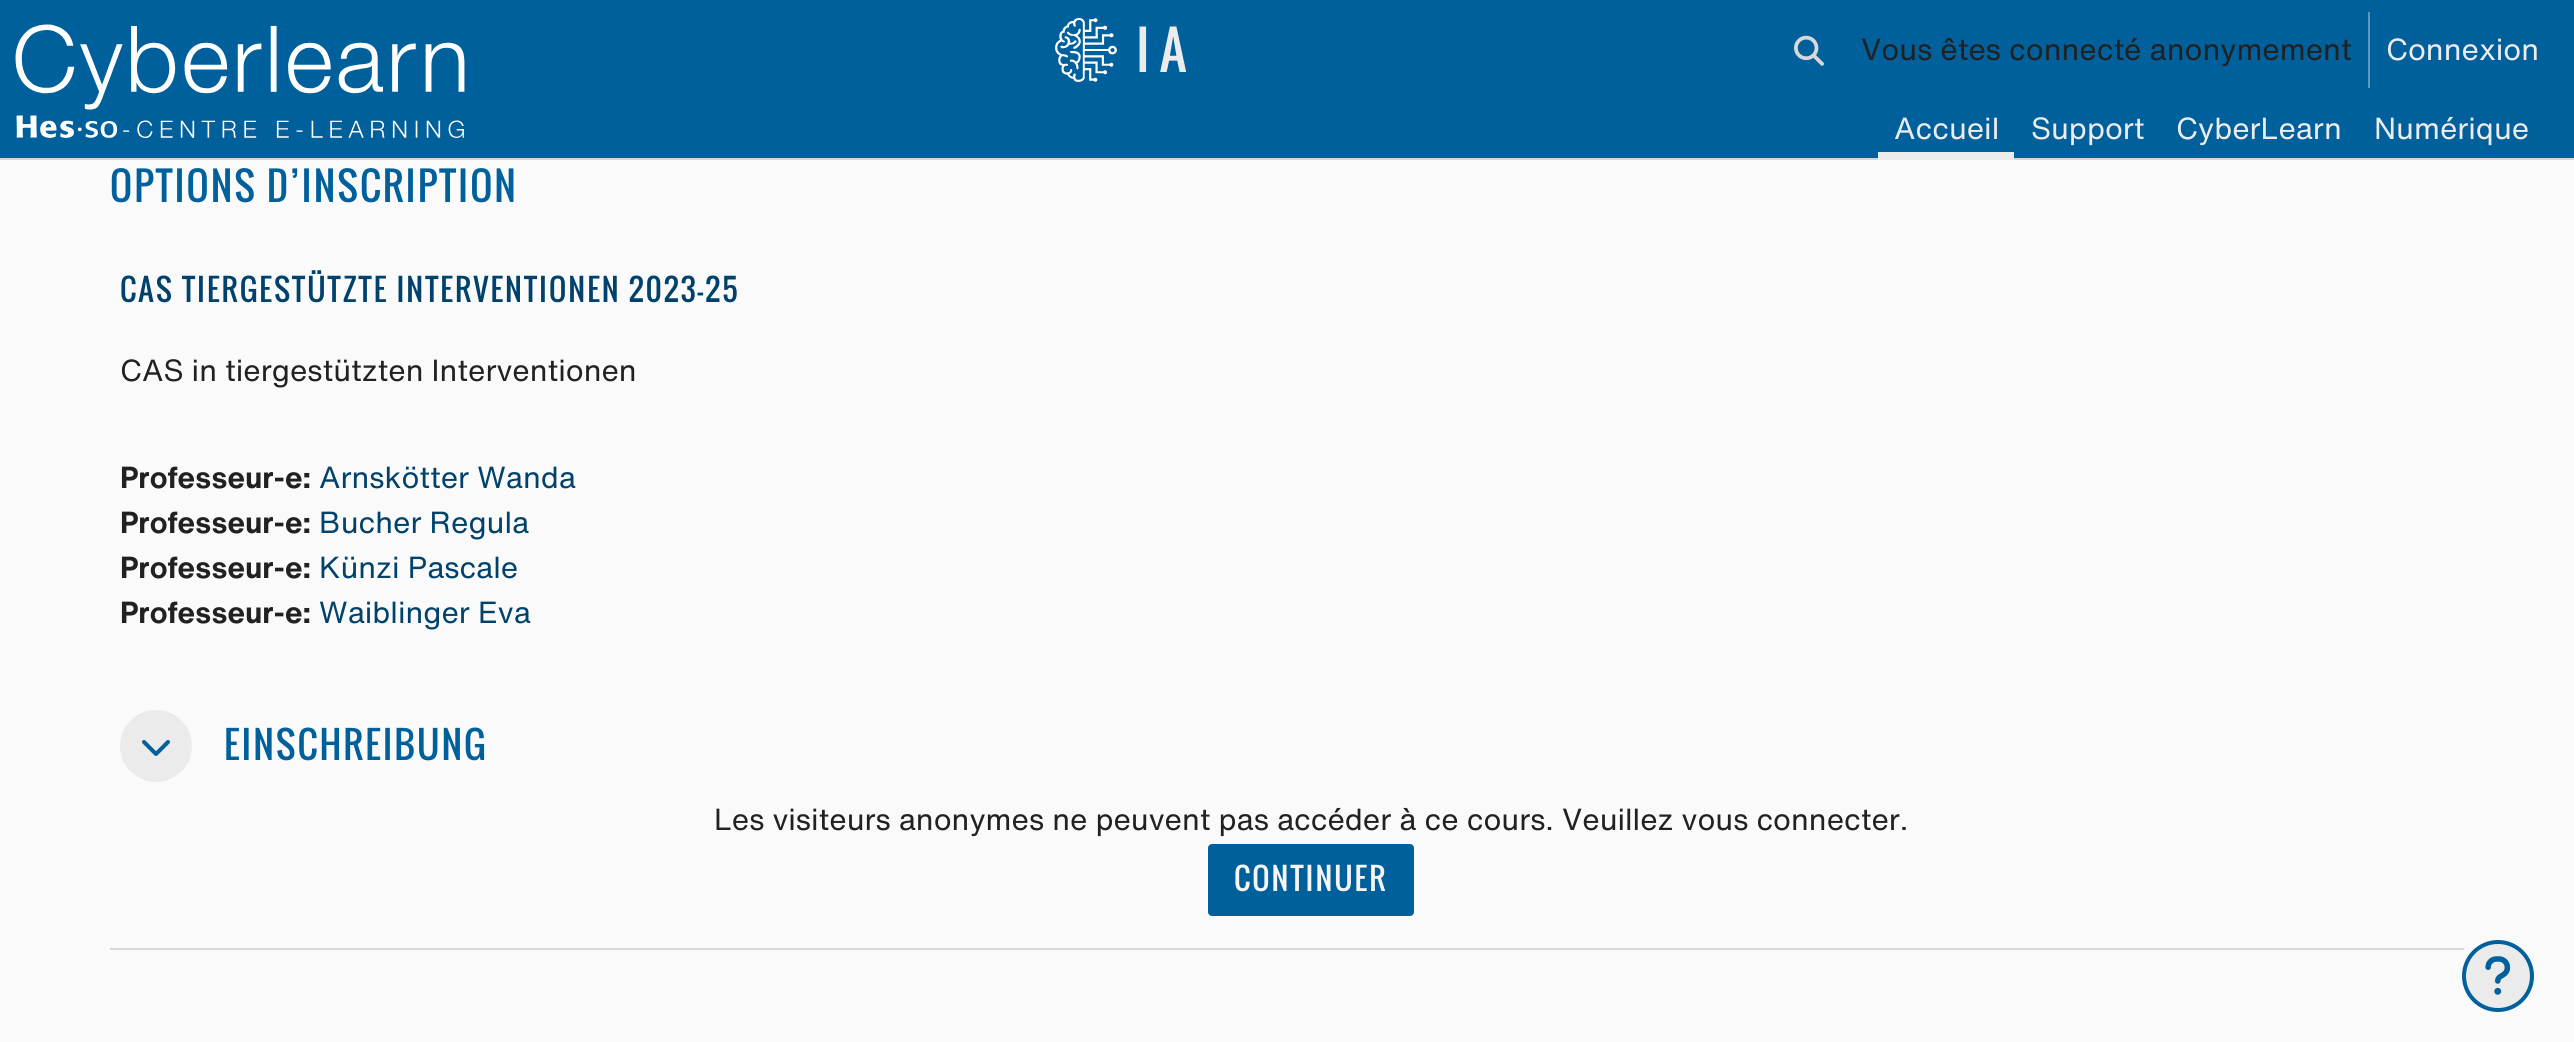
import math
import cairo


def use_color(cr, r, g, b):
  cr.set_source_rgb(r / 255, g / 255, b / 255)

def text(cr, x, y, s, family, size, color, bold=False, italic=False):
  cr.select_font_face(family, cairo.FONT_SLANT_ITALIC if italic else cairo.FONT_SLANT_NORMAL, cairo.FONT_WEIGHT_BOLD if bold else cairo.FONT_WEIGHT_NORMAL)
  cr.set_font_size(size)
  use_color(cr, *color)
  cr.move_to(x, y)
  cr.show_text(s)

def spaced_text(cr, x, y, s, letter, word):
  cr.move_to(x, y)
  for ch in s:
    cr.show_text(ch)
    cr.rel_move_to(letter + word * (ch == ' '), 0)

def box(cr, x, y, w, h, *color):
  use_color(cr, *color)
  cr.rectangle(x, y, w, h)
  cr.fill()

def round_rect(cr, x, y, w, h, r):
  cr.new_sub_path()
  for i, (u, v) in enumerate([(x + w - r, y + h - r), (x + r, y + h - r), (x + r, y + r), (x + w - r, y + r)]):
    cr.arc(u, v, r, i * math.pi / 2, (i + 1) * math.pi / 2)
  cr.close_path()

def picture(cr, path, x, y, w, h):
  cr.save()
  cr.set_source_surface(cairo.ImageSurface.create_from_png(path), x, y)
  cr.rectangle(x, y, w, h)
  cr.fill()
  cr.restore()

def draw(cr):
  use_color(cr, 250, 250, 250)
  cr.paint()
  box(cr, 0, 0, 2574, 158, 0, 96, 156)
  box(cr, 0, 158, 2574, 2, 215, 215, 215)
  picture(cr, "img_01.png", 15, 24, 450, 114)
  picture(cr, "img_02.png", 1055, 18, 62, 64)
  picture(cr, "img_03.png", 1794, 35, 30, 31)
  box(cr, 2368, 12, 2, 76, 92, 153, 192)
  box(cr, 1878, 152, 136, 8, 236, 236, 236)
  box(cr, 110, 948, 2354, 2, 215, 215, 215)
  use_color(cr, 235, 235, 235)
  cr.arc(156, 746, 36, 0, 2 * math.pi)
  cr.fill()
  picture(cr, "img_04.png", 142, 740, 28, 16)
  use_color(cr, 0, 96, 156)
  round_rect(cr, 1209, 845, 204, 70, 3)
  cr.fill_preserve()
  cr.stroke()
  use_color(cr, 235, 235, 235)
  cr.arc(2498, 976, 34, 0, 2 * math.pi)
  cr.fill_preserve()
  use_color(cr, 0, 96, 156)
  cr.set_line_width(4)
  cr.stroke()
  picture(cr, "img_05.png", 2485, 956, 26, 39)
  cr.select_font_face("Oswald")
  cr.set_font_size(52)
  use_color(cr, 236, 236, 236)
  spaced_text(cr, 1136, 72, "IA", 10, 0)
  text(cr, 1861, 60, "Vous êtes connecté anonymement", "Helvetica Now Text", 30, (33, 33, 33))
  text(cr, 2386, 60, "Connexion", "Helvetica Now Text", 30, (236, 236, 236))
  text(cr, 1894, 139, "Accueil", "Helvetica Now Text", 30, (236, 236, 236))
  text(cr, 2031, 139, "Support", "Helvetica Now Text", 30, (236, 236, 236))
  text(cr, 2176, 139, "CyberLearn", "Helvetica Now Text", 30, (236, 236, 236))
  text(cr, 2374, 139, "Numérique", "Helvetica Now Text", 30, (236, 236, 236))
  cr.select_font_face("Oswald")
  cr.set_font_size(38.4)
  use_color(cr, 0, 96, 156)
  spaced_text(cr, 110, 202, "OPTIONS D’INSCRIPTION", 2, 0)
  cr.set_font_size(30)
  use_color(cr, 0, 66, 108)
  spaced_text(cr, 120, 302, "CAS TIERGESTÜTZTE INTERVENTIONEN 2023-25", 2, 0)
  text(cr, 120, 381, "CAS in tiergestützten Interventionen", "Helvetica Now Text", 30, (33, 33, 33))
  text(cr, 120, 488, "Professeur-e:", "Helvetica Now Text", 30, (33, 33, 33), bold=True)
  text(cr, 319, 488, "Arnskötter Wanda", "Helvetica Now Text", 30, (0, 66, 108))
  text(cr, 120, 533, "Professeur-e:", "Helvetica Now Text", 30, (33, 33, 33), bold=True)
  text(cr, 319, 533, "Bucher Regula", "Helvetica Now Text", 30, (0, 66, 108))
  text(cr, 120, 578, "Professeur-e:", "Helvetica Now Text", 30, (33, 33, 33), bold=True)
  text(cr, 319, 578, "Künzi Pascale", "Helvetica Now Text", 30, (0, 66, 108))
  text(cr, 120, 623, "Professeur-e:", "Helvetica Now Text", 30, (33, 33, 33), bold=True)
  text(cr, 319, 623, "Waiblinger Eva", "Helvetica Now Text", 30, (0, 66, 108))
  cr.select_font_face("Oswald")
  cr.set_font_size(36.75)
  use_color(cr, 0, 96, 156)
  spaced_text(cr, 224, 760, "EINSCHREIBUNG", 2, 0)
  text(cr, 714, 830, "Les visiteurs anonymes ne peuvent pas accéder à ce cours. Veuillez vous connecter.", "Helvetica Now Text", 30, (33, 33, 33))
  cr.select_font_face("Oswald")
  use_color(cr, 245, 245, 245)
  spaced_text(cr, 1234, 891, "CONTINUER", 2, 0)


surface = cairo.ImageSurface(cairo.FORMAT_RGB24, 2574, 1042)
cr = cairo.Context(surface)
options = cairo.FontOptions()
options.set_hint_metrics(cairo.HINT_METRICS_OFF)
options.set_hint_style(cairo.HINT_STYLE_NONE)
cr.set_font_options(options)
cr.set_miter_limit(4)
draw(cr)
surface.write_to_png("out.png")
